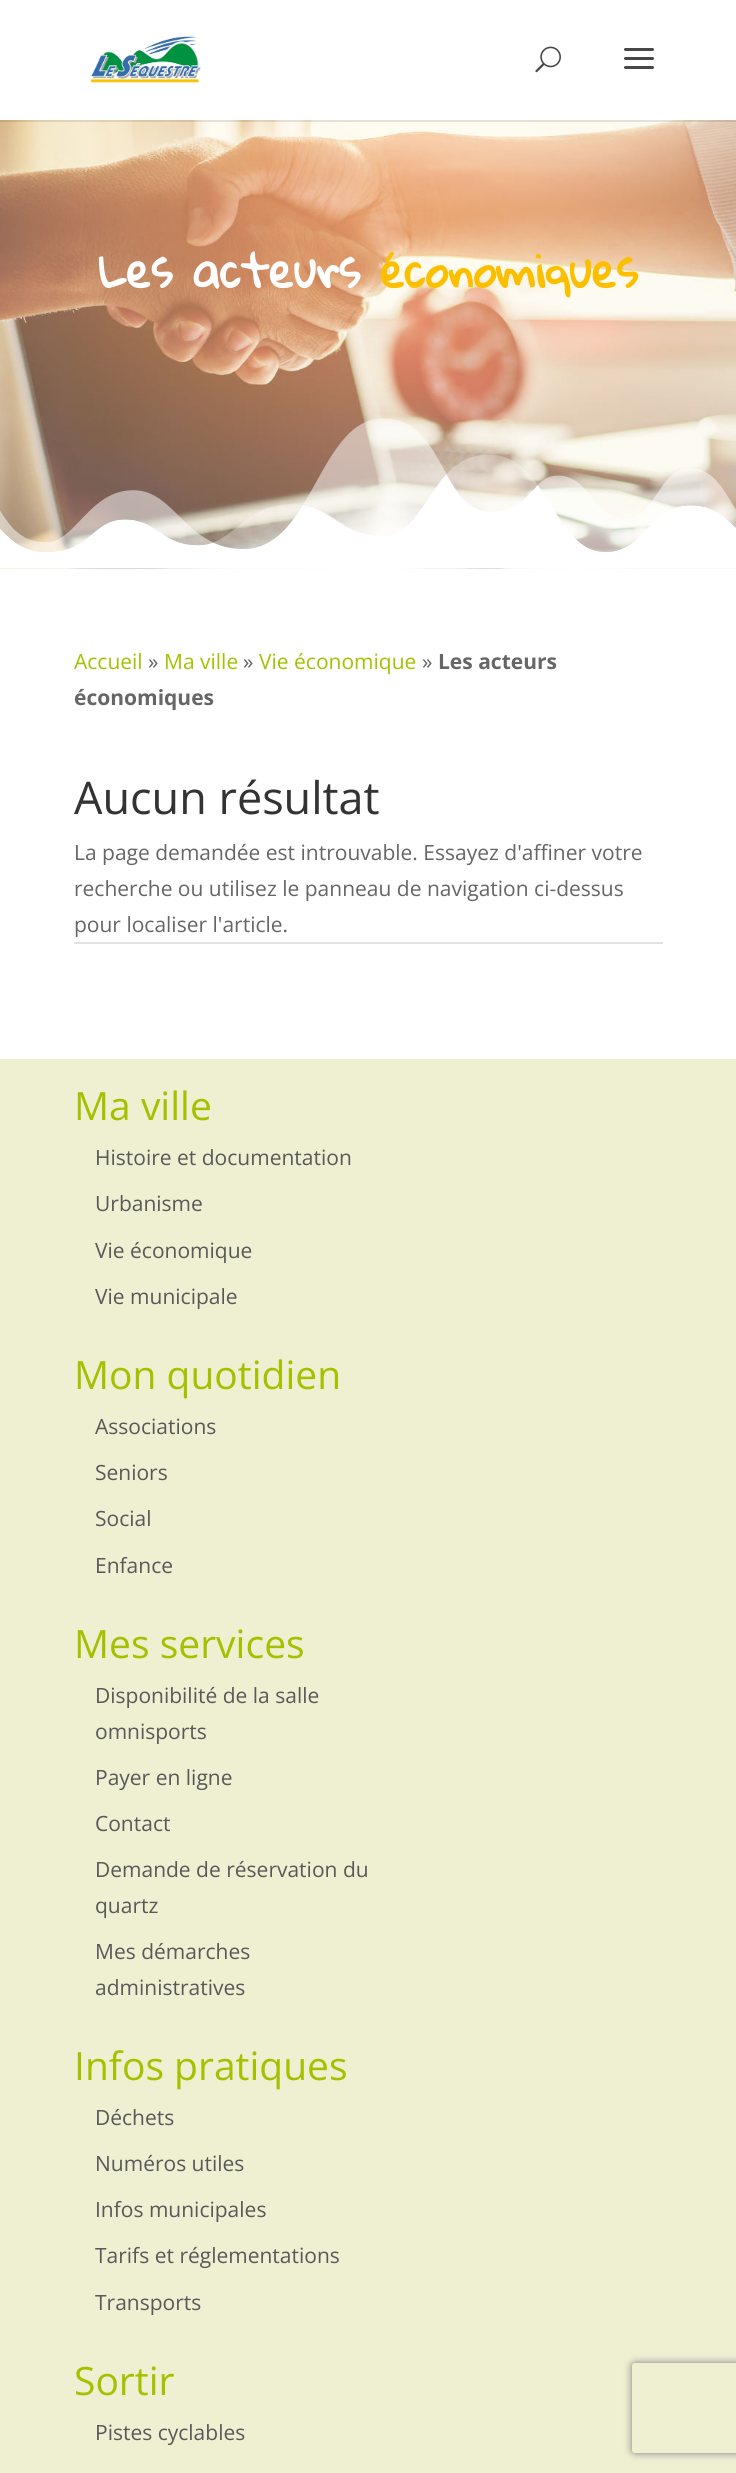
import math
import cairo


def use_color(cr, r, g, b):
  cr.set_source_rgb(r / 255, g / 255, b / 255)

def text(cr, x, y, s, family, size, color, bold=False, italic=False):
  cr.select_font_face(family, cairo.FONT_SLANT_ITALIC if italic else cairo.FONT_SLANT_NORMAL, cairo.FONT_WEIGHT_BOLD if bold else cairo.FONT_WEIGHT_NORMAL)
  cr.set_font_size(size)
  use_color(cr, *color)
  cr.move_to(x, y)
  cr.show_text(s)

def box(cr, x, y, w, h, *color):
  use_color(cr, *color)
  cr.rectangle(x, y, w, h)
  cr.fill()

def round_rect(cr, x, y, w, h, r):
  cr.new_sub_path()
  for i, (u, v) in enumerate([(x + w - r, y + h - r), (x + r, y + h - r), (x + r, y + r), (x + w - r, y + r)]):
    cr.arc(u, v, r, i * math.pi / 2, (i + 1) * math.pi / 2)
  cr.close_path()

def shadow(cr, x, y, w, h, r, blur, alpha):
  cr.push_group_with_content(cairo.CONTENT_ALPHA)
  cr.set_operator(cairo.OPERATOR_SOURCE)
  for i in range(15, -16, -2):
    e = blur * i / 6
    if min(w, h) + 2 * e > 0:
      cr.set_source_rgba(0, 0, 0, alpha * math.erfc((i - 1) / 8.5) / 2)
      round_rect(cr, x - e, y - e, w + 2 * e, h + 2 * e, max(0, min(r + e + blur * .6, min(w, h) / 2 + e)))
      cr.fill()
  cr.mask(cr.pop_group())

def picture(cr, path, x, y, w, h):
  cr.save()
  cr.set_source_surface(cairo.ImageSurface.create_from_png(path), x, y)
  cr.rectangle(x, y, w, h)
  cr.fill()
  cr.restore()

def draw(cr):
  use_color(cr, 255, 255, 255)
  cr.paint()
  picture(cr, "img_04.png", 0, 120, 736, 449)
  cr.set_source_rgba(0, 0, 0, 0.1)
  cr.new_path()
  cr.move_to(0, 120)
  cr.line_to(0, 122)
  cr.line_to(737, 122)
  cr.line_to(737, 2)
  cr.line_to(736, 2)
  cr.line_to(736, 120)
  cr.close_path()
  cr.fill()
  picture(cr, "img_01.png", 90, 36, 111, 47)
  picture(cr, "img_02.png", 535, 46, 26, 27)
  picture(cr, "img_03.png", 624, 48, 30, 21)
  picture(cr, "img_05.png", 0, 419, 736, 150)
  box(cr, 74, 942, 589, 2, 226, 226, 226)
  box(cr, 0, 1059, 736, 1414, 239, 239, 210)
  cr.save()
  cr.set_fill_rule(cairo.FILL_RULE_EVEN_ODD)
  cr.new_path()
  cr.move_to(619, 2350)
  cr.line_to(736, 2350)
  cr.line_to(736, 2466)
  cr.line_to(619, 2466)
  cr.close_path()
  cr.move_to(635, 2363)
  cr.line_to(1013, 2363)
  cr.curve_to(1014.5, 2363, 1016, 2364.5, 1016, 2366)
  cr.line_to(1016, 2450)
  cr.curve_to(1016, 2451.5, 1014.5, 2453, 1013, 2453)
  cr.line_to(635, 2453)
  cr.curve_to(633.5, 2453, 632, 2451.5, 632, 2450)
  cr.line_to(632, 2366)
  cr.curve_to(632, 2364.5, 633.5, 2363, 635, 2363)
  cr.close_path()
  cr.clip()
  use_color(cr, 128, 128, 128)
  shadow(cr, 632, 2363, 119, 90, 3, 4, 1)
  cr.restore()
  text(cr, 99, 288, "Les acteurs", "Gloria Hallelujah", 45, (255, 255, 255), bold=True)
  text(cr, 380, 288, "économiques", "Gloria Hallelujah", 45, (252, 191, 0), bold=True)
  text(cr, 74, 669, "Accueil", "Open Sans", 21, (164, 193, 0))
  text(cr, 148, 669, "»", "Open Sans", 21, (102, 102, 102))
  text(cr, 164, 669, "Ma ville", "Open Sans", 21, (164, 193, 0))
  text(cr, 243, 669, "»", "Open Sans", 21, (102, 102, 102))
  text(cr, 259, 669, "Vie économique", "Open Sans", 21, (164, 193, 0))
  text(cr, 422, 669, "»", "Open Sans", 21, (102, 102, 102))
  text(cr, 438, 669, "Les acteurs", "Open Sans", 21, (102, 102, 102), bold=True)
  text(cr, 74, 705, "économiques", "Open Sans", 21, (102, 102, 102), bold=True)
  text(cr, 74, 814, "Aucun résultat", "Open Sans", 45, (51, 51, 51))
  text(cr, 74, 860, "La page demandée est introuvable. Essayez d'affiner votre", "Open Sans", 21, (102, 102, 102))
  text(cr, 74, 896, "recherche ou utilisez le panneau de navigation ci-dessus", "Open Sans", 21, (102, 102, 102))
  text(cr, 74, 932, "pour localiser l'article.", "Open Sans", 21, (102, 102, 102))
  text(cr, 74, 1120, "Ma ville", "Open Sans", 39, (164, 193, 0))
  text(cr, 95, 1165, "Histoire et documentation", "Open Sans", 21, (89, 89, 89))
  text(cr, 95, 1211, "Urbanisme", "Open Sans", 21, (89, 89, 89))
  text(cr, 95, 1258, "Vie économique", "Open Sans", 21, (89, 89, 89))
  text(cr, 95, 1304, "Vie municipale", "Open Sans", 21, (89, 89, 89))
  text(cr, 74, 1389, "Mon quotidien", "Open Sans", 39, (164, 193, 0))
  text(cr, 95, 1434, "Associations", "Open Sans", 21, (89, 89, 89))
  text(cr, 95, 1480, "Seniors", "Open Sans", 21, (89, 89, 89))
  text(cr, 95, 1526, "Social", "Open Sans", 21, (89, 89, 89))
  text(cr, 95, 1573, "Enfance", "Open Sans", 21, (89, 89, 89))
  text(cr, 74, 1658, "Mes services", "Open Sans", 39, (164, 193, 0))
  text(cr, 95, 1703, "Disponibilité de la salle", "Open Sans", 21, (89, 89, 89))
  text(cr, 95, 1739, "omnisports", "Open Sans", 21, (89, 89, 89))
  text(cr, 95, 1785, "Payer en ligne", "Open Sans", 21, (89, 89, 89))
  text(cr, 95, 1831, "Contact", "Open Sans", 21, (89, 89, 89))
  text(cr, 95, 1877, "Demande de réservation du", "Open Sans", 21, (89, 89, 89))
  text(cr, 95, 1913, "quartz", "Open Sans", 21, (89, 89, 89))
  text(cr, 95, 1959, "Mes démarches", "Open Sans", 21, (89, 89, 89))
  text(cr, 95, 1995, "administratives", "Open Sans", 21, (89, 89, 89))
  text(cr, 74, 2080, "Infos pratiques", "Open Sans", 39, (164, 193, 0))
  text(cr, 95, 2125, "Déchets", "Open Sans", 21, (89, 89, 89))
  text(cr, 95, 2171, "Numéros utiles", "Open Sans", 21, (89, 89, 89))
  text(cr, 95, 2217, "Infos municipales", "Open Sans", 21, (89, 89, 89))
  text(cr, 95, 2263, "Tarifs et réglementations", "Open Sans", 21, (89, 89, 89))
  text(cr, 95, 2310, "Transports", "Open Sans", 21, (89, 89, 89))
  text(cr, 74, 2395, "Sortir", "Open Sans", 39, (164, 193, 0))
  text(cr, 95, 2440, "Pistes cyclables", "Open Sans", 21, (89, 89, 89))


surface = cairo.ImageSurface(cairo.FORMAT_RGB24, 736, 2473)
cr = cairo.Context(surface)
options = cairo.FontOptions()
options.set_hint_metrics(cairo.HINT_METRICS_OFF)
options.set_hint_style(cairo.HINT_STYLE_NONE)
cr.set_font_options(options)
cr.set_miter_limit(4)
draw(cr)
surface.write_to_png("out.png")
